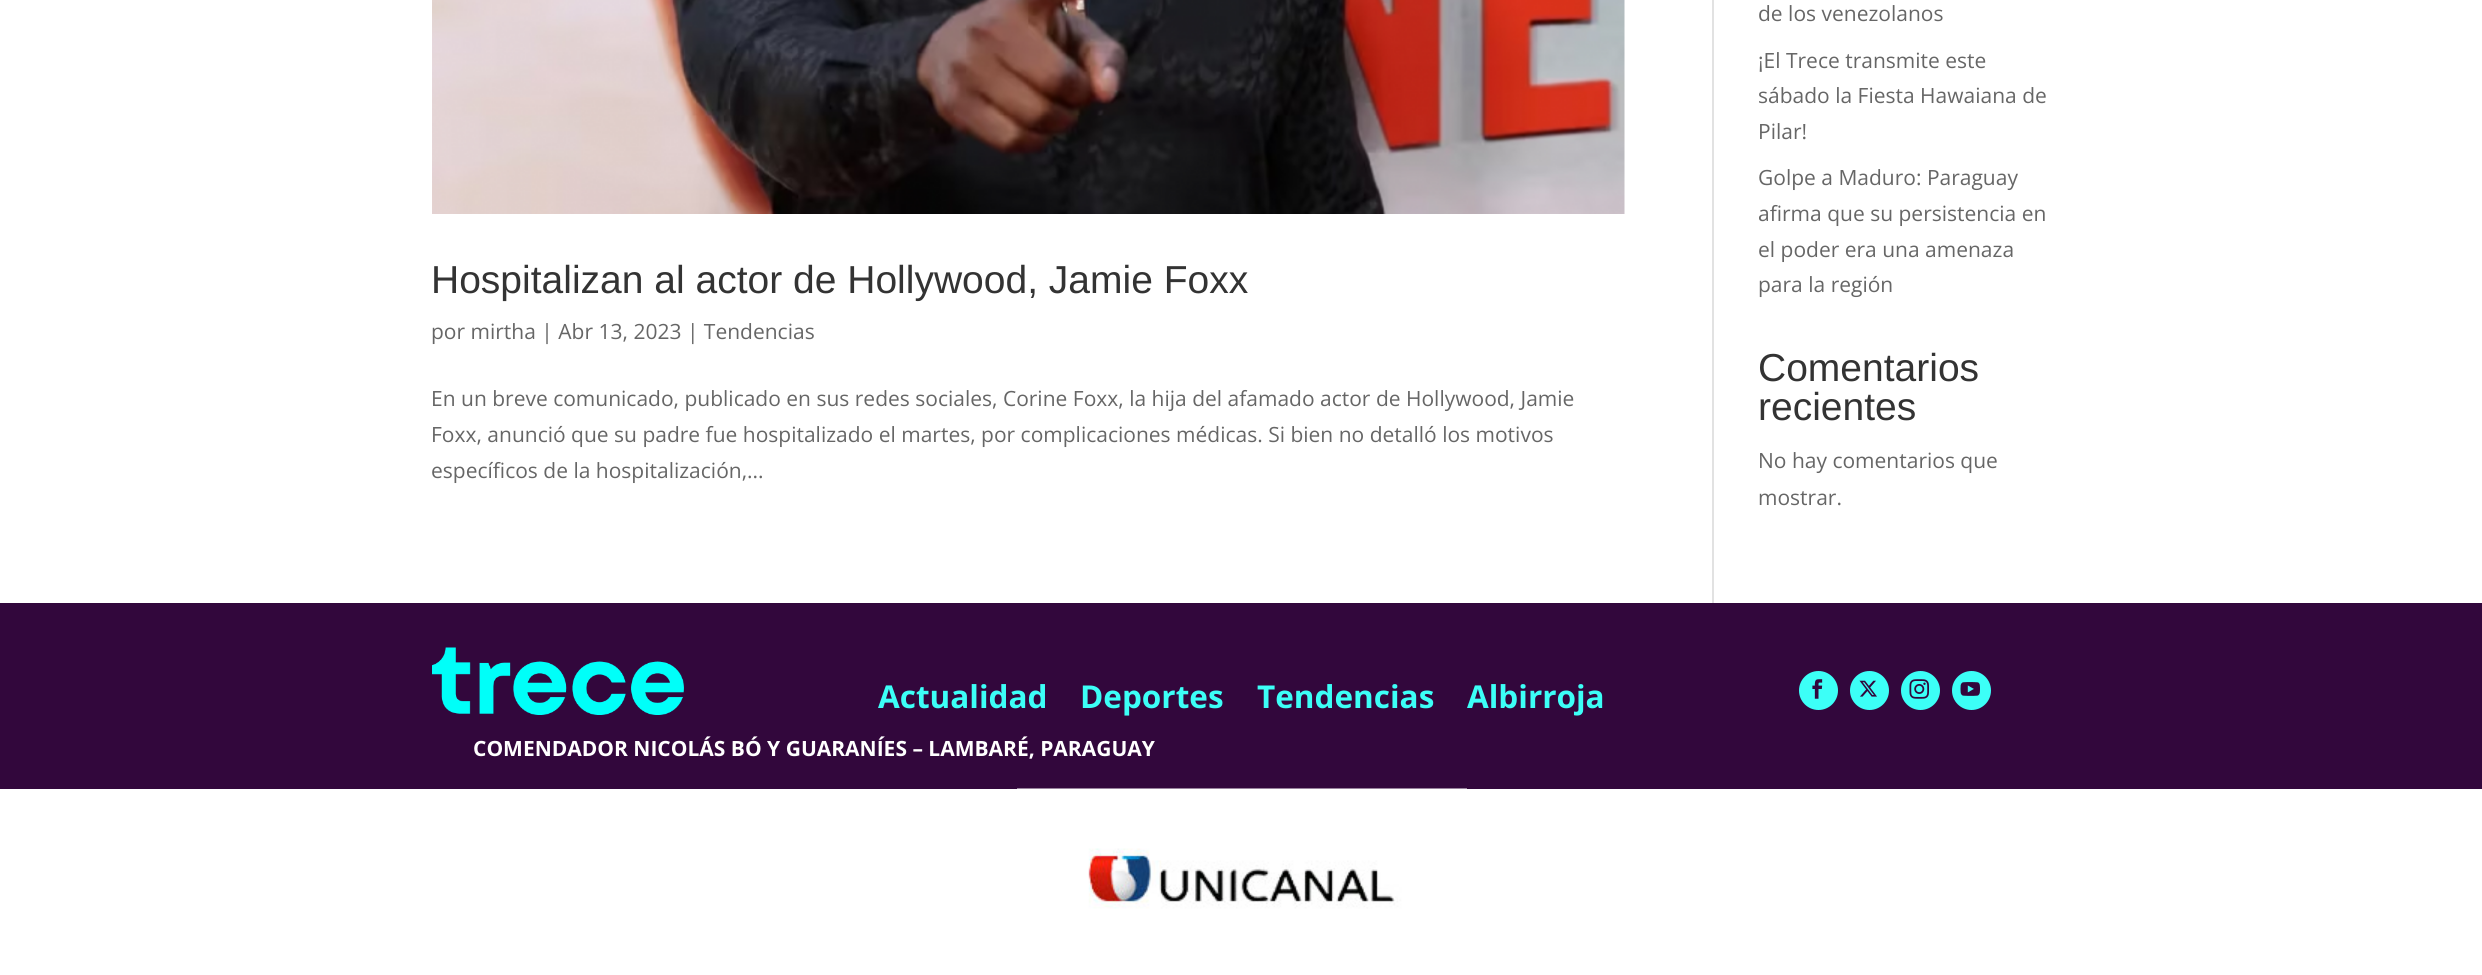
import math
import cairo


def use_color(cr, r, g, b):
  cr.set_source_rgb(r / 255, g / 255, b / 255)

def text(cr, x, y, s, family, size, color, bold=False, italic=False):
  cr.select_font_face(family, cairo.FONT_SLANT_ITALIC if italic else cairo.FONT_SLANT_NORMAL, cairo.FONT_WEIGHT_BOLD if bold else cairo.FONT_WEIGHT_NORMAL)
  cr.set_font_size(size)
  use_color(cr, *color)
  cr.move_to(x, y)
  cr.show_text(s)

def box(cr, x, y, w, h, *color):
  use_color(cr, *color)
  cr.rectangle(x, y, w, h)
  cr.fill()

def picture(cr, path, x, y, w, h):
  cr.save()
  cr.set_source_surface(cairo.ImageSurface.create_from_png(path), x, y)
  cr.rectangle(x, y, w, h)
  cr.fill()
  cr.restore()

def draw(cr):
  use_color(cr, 255, 255, 255)
  cr.paint()
  box(cr, 1712, 0, 2, 603, 226, 226, 226)
  picture(cr, "img_01.png", 432, 0, 1193, 214)
  box(cr, 0, 603, 2482, 186, 50, 7, 60)
  picture(cr, "img_02.png", 432, 647, 252, 68)
  use_color(cr, 60, 255, 247)
  cr.arc(1818.5, 690.5, 19.5, 0, 2 * math.pi)
  cr.fill()
  picture(cr, "img_03.png", 1812, 679, 11, 20)
  cr.arc(1869.5, 690.5, 19.5, 0, 2 * math.pi)
  cr.fill()
  picture(cr, "img_04.png", 1859, 680, 18, 17)
  cr.arc(1920.5, 690.5, 19.5, 0, 2 * math.pi)
  cr.fill()
  picture(cr, "img_05.png", 1909, 679, 20, 20)
  cr.arc(1971.5, 690.5, 19.5, 0, 2 * math.pi)
  cr.fill()
  picture(cr, "img_06.png", 1960, 682, 20, 14)
  picture(cr, "img_07.png", 1017, 788, 450, 121)
  text(cr, 431, 293, "Hospitalizan al actor de Hollywood, Jamie Foxx", "Liberation Sans", 39, (51, 51, 51))
  text(cr, 431, 339, "por mirtha | Abr 13, 2023 | Tendencias", "Open Sans", 21, (102, 102, 102))
  text(cr, 431, 406, "En un breve comunicado, publicado en sus redes sociales, Corine Foxx, la hija del afamado actor de Hollywood, Jamie", "Open Sans", 21, (102, 102, 102))
  text(cr, 431, 442, "Foxx, anunció que su padre fue hospitalizado el martes, por complicaciones médicas. Si bien no detalló los motivos", "Open Sans", 21, (102, 102, 102))
  text(cr, 431, 478, "específicos de la hospitalización,...", "Open Sans", 21, (102, 102, 102))
  text(cr, 1758, 21, "de los venezolanos", "Open Sans", 21, (102, 102, 102))
  text(cr, 1758, 68, "¡El Trece transmite este", "Open Sans", 21, (102, 102, 102))
  text(cr, 1758, 103, "sábado la Fiesta Hawaiana de", "Open Sans", 21, (102, 102, 102))
  text(cr, 1758, 139, "Pilar!", "Open Sans", 21, (102, 102, 102))
  text(cr, 1758, 185, "Golpe a Maduro: Paraguay", "Open Sans", 21, (102, 102, 102))
  text(cr, 1758, 221, "afirma que su persistencia en", "Open Sans", 21, (102, 102, 102))
  text(cr, 1758, 257, "el poder era una amenaza", "Open Sans", 21, (102, 102, 102))
  text(cr, 1758, 292, "para la región", "Open Sans", 21, (102, 102, 102))
  text(cr, 1758, 381, "Comentarios", "Liberation Sans", 39, (51, 51, 51))
  text(cr, 1758, 420, "recientes", "Liberation Sans", 39, (51, 51, 51))
  text(cr, 1758, 468, "No hay comentarios que", "Open Sans", 21, (102, 102, 102))
  text(cr, 1758, 505, "mostrar.", "Open Sans", 21, (102, 102, 102))
  text(cr, 878, 708, "Actualidad", "Open Sans", 31.5, (60, 255, 247), bold=True)
  text(cr, 1080, 708, "Deportes", "Open Sans", 31.5, (60, 255, 247), bold=True)
  text(cr, 1257, 708, "Tendencias", "Open Sans", 31.5, (60, 255, 247), bold=True)
  text(cr, 1467, 708, "Albirroja", "Open Sans", 31.5, (60, 255, 247), bold=True)
  text(cr, 473, 756, "COMENDADOR NICOLÁS BÓ Y GUARANÍES – LAMBARÉ, PARAGUAY", "Open Sans", 21, (255, 255, 255), bold=True)


surface = cairo.ImageSurface(cairo.FORMAT_RGB24, 2482, 975)
cr = cairo.Context(surface)
options = cairo.FontOptions()
options.set_hint_metrics(cairo.HINT_METRICS_OFF)
options.set_hint_style(cairo.HINT_STYLE_NONE)
cr.set_font_options(options)
cr.set_miter_limit(4)
draw(cr)
surface.write_to_png("out.png")
